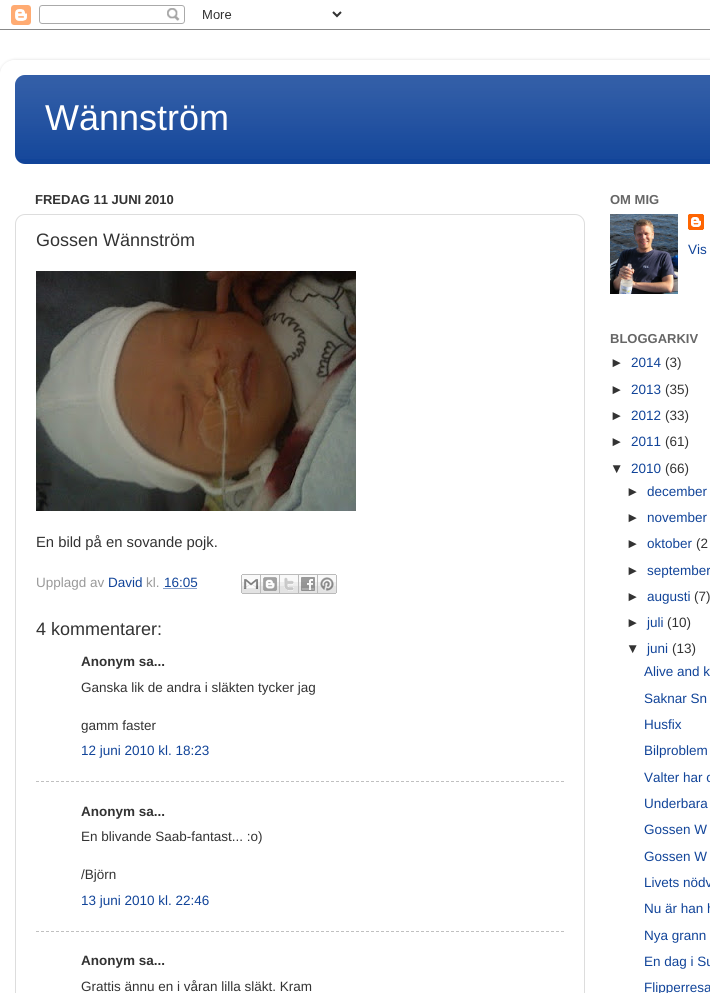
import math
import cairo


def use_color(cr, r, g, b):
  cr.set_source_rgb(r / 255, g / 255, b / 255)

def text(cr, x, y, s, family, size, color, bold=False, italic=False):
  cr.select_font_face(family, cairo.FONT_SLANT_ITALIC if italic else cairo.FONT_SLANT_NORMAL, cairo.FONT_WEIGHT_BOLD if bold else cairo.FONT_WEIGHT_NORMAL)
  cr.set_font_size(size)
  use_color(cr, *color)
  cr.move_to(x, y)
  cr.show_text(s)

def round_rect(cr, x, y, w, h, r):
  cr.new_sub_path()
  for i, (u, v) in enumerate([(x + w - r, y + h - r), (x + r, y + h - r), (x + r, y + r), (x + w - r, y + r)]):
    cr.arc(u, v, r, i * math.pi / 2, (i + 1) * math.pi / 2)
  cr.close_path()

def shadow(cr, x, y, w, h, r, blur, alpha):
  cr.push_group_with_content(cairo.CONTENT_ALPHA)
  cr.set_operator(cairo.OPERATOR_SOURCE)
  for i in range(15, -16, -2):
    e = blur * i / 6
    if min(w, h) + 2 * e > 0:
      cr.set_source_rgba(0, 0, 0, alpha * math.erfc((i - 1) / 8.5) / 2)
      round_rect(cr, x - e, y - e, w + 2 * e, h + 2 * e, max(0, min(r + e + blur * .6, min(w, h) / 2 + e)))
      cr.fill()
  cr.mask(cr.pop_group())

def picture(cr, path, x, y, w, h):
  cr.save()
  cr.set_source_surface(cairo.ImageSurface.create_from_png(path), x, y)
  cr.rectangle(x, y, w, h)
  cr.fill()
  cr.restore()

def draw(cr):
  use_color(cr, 255, 255, 255)
  cr.paint()
  picture(cr, "img_01.png", 0, 5, 710, 25)
  cr.save()
  cr.set_fill_rule(cairo.FILL_RULE_EVEN_ODD)
  cr.new_path()
  cr.move_to(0, 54)
  cr.line_to(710, 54)
  cr.line_to(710, 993)
  cr.line_to(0, 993)
  cr.close_path()
  cr.move_to(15, 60)
  cr.line_to(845, 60)
  cr.curve_to(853.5, 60, 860, 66.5, 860, 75)
  cr.line_to(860, 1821)
  cr.curve_to(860, 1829.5, 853.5, 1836, 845, 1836)
  cr.line_to(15, 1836)
  cr.curve_to(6.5, 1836, 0, 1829.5, 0, 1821)
  cr.line_to(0, 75)
  cr.curve_to(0, 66.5, 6.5, 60, 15, 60)
  cr.close_path()
  cr.clip()
  use_color(cr, 0, 0, 0)
  shadow(cr, 0, 60, 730, 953, 15, 1.5, 0.15)
  cr.restore()
  use_color(cr, 17, 68, 153)
  round_rect(cr, 15, 75, 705, 89, 10)
  cr.fill()
  picture(cr, "img_02.png", 15, 75, 695, 84)
  round_rect(cr, 15.5, 214.5, 569, 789, 9.5)
  use_color(cr, 221, 221, 221)
  cr.set_line_width(1)
  cr.stroke()
  picture(cr, "img_03.png", 36, 271, 320, 240)
  cr.new_path()
  cr.move_to(163.5, 588.5)
  cr.line_to(197.5, 588.5)
  use_color(cr, 17, 68, 153)
  cr.set_dash([1, 1])
  cr.stroke()
  picture(cr, "img_04.png", 241, 574, 20, 20)
  picture(cr, "img_05.png", 261, 574, 19, 20)
  picture(cr, "img_06.png", 280, 574, 19, 20)
  picture(cr, "img_07.png", 299, 574, 19, 20)
  picture(cr, "img_08.png", 318, 574, 19, 20)
  cr.new_path()
  cr.move_to(36, 781.5)
  cr.line_to(564, 781.5)
  use_color(cr, 192, 192, 192)
  cr.set_dash([3, 2])
  cr.stroke()
  cr.new_path()
  cr.move_to(36, 931.5)
  cr.line_to(564, 931.5)
  cr.stroke()
  picture(cr, "img_09.png", 610, 214, 68, 80)
  picture(cr, "img_10.png", 688, 214, 16, 16)
  text(cr, 45, 130, "Wännström", "Liberation Sans", 36, (255, 255, 255))
  text(cr, 35, 204, "FREDAG 11 JUNI 2010", "Liberation Sans", 13, (51, 51, 51), bold=True)
  text(cr, 36, 246, "Gossen Wännström", "Liberation Sans", 18, (51, 51, 51))
  text(cr, 36, 547, "En bild på en sovande pojk.", "Liberation Sans", 14.8, (51, 51, 51))
  text(cr, 36, 587, "Upplagd av", "Liberation Sans", 13.5, (153, 153, 153))
  text(cr, 108, 587, "David", "Liberation Sans", 13.5, (17, 68, 153))
  text(cr, 146, 587, "kl.", "Liberation Sans", 13.5, (153, 153, 153))
  text(cr, 164, 587, "16:05", "Liberation Sans", 13.5, (17, 68, 153))
  text(cr, 36, 635, "4 kommentarer:", "Liberation Sans", 18, (51, 51, 51))
  text(cr, 81, 666, "Anonym sa...", "Liberation Sans", 13.5, (51, 51, 51), bold=True)
  text(cr, 81, 692, "Ganska lik de andra i släkten tycker jag", "Liberation Sans", 13.5, (51, 51, 51))
  text(cr, 81, 730, "gamm faster", "Liberation Sans", 13.5, (51, 51, 51))
  text(cr, 81, 755, "12 juni 2010 kl. 18:23", "Liberation Sans", 13.5, (17, 68, 153))
  text(cr, 81, 816, "Anonym sa...", "Liberation Sans", 13.5, (51, 51, 51), bold=True)
  text(cr, 81, 841, "En blivande Saab-fantast... :o)", "Liberation Sans", 13.5, (51, 51, 51))
  text(cr, 81, 879, "/Björn", "Liberation Sans", 13.5, (51, 51, 51))
  text(cr, 81, 905, "13 juni 2010 kl. 22:46", "Liberation Sans", 13.5, (17, 68, 153))
  text(cr, 81, 965, "Anonym sa...", "Liberation Sans", 13.5, (51, 51, 51), bold=True)
  text(cr, 81, 991, "Grattis ännu en i våran lilla släkt. Kram", "Liberation Sans", 13.5, (51, 51, 51))
  text(cr, 610, 204, "OM MIG", "Liberation Sans", 13, (102, 102, 102), bold=True)
  text(cr, 688, 254, "Vis", "Liberation Sans", 13.5, (17, 68, 153))
  text(cr, 610, 343, "BLOGGARKIV", "Liberation Sans", 13, (102, 102, 102), bold=True)
  text(cr, 610, 367, "►", "Liberation Sans", 13.5, (51, 51, 51))
  text(cr, 631, 367, "2014", "Liberation Sans", 13.5, (17, 68, 153))
  text(cr, 665, 367, "(3)", "Liberation Sans", 13.5, (51, 51, 51))
  text(cr, 610, 394, "►", "Liberation Sans", 13.5, (51, 51, 51))
  text(cr, 631, 394, "2013", "Liberation Sans", 13.5, (17, 68, 153))
  text(cr, 665, 394, "(35)", "Liberation Sans", 13.5, (51, 51, 51))
  text(cr, 610, 420, "►", "Liberation Sans", 13.5, (51, 51, 51))
  text(cr, 631, 420, "2012", "Liberation Sans", 13.5, (17, 68, 153))
  text(cr, 665, 420, "(33)", "Liberation Sans", 13.5, (51, 51, 51))
  text(cr, 610, 446, "►", "Liberation Sans", 13.5, (51, 51, 51))
  text(cr, 631, 446, "2011", "Liberation Sans", 13.5, (17, 68, 153))
  text(cr, 665, 446, "(61)", "Liberation Sans", 13.5, (51, 51, 51))
  text(cr, 610, 473, "▼", "Liberation Sans", 13.5, (51, 51, 51))
  text(cr, 631, 473, "2010", "Liberation Sans", 13.5, (17, 68, 153))
  text(cr, 665, 473, "(66)", "Liberation Sans", 13.5, (51, 51, 51))
  text(cr, 626, 496, "►", "Liberation Sans", 13.5, (51, 51, 51))
  text(cr, 647, 496, "december", "Liberation Sans", 13.5, (17, 68, 153))
  text(cr, 626, 522, "►", "Liberation Sans", 13.5, (51, 51, 51))
  text(cr, 647, 522, "november", "Liberation Sans", 13.5, (17, 68, 153))
  text(cr, 626, 548, "►", "Liberation Sans", 13.5, (51, 51, 51))
  text(cr, 647, 548, "oktober", "Liberation Sans", 13.5, (17, 68, 153))
  text(cr, 696, 548, "(2", "Liberation Sans", 13.5, (51, 51, 51))
  text(cr, 626, 575, "►", "Liberation Sans", 13.5, (51, 51, 51))
  text(cr, 647, 575, "september", "Liberation Sans", 13.5, (17, 68, 153))
  text(cr, 626, 601, "►", "Liberation Sans", 13.5, (51, 51, 51))
  text(cr, 647, 601, "augusti", "Liberation Sans", 13.5, (17, 68, 153))
  text(cr, 694, 601, "(7)", "Liberation Sans", 13.5, (51, 51, 51))
  text(cr, 626, 627, "►", "Liberation Sans", 13.5, (51, 51, 51))
  text(cr, 647, 627, "juli", "Liberation Sans", 13.5, (17, 68, 153))
  text(cr, 667, 627, "(10)", "Liberation Sans", 13.5, (51, 51, 51))
  text(cr, 626, 653, "▼", "Liberation Sans", 13.5, (51, 51, 51))
  text(cr, 647, 653, "juni", "Liberation Sans", 13.5, (17, 68, 153))
  text(cr, 672, 653, "(13)", "Liberation Sans", 13.5, (51, 51, 51))
  text(cr, 644, 676, "Alive and k", "Liberation Sans", 13.5, (17, 68, 153))
  text(cr, 644, 703, "Saknar Sn", "Liberation Sans", 13.5, (17, 68, 153))
  text(cr, 644, 729, "Husfix", "Liberation Sans", 13.5, (17, 68, 153))
  text(cr, 644, 755, "Bilproblem", "Liberation Sans", 13.5, (17, 68, 153))
  text(cr, 644, 782, "Valter har o", "Liberation Sans", 13.5, (17, 68, 153))
  text(cr, 644, 808, "Underbara", "Liberation Sans", 13.5, (17, 68, 153))
  text(cr, 644, 834, "Gossen W", "Liberation Sans", 13.5, (17, 68, 153))
  text(cr, 644, 861, "Gossen W", "Liberation Sans", 13.5, (17, 68, 153))
  text(cr, 644, 887, "Livets nödv", "Liberation Sans", 13.5, (17, 68, 153))
  text(cr, 644, 913, "Nu är han h", "Liberation Sans", 13.5, (17, 68, 153))
  text(cr, 644, 940, "Nya grann", "Liberation Sans", 13.5, (17, 68, 153))
  text(cr, 644, 966, "En dag i Su", "Liberation Sans", 13.5, (17, 68, 153))
  text(cr, 644, 992, "Flipperresa", "Liberation Sans", 13.5, (17, 68, 153))


surface = cairo.ImageSurface(cairo.FORMAT_RGB24, 710, 993)
cr = cairo.Context(surface)
options = cairo.FontOptions()
options.set_hint_metrics(cairo.HINT_METRICS_OFF)
options.set_hint_style(cairo.HINT_STYLE_NONE)
cr.set_font_options(options)
cr.set_miter_limit(4)
draw(cr)
surface.write_to_png("out.png")
